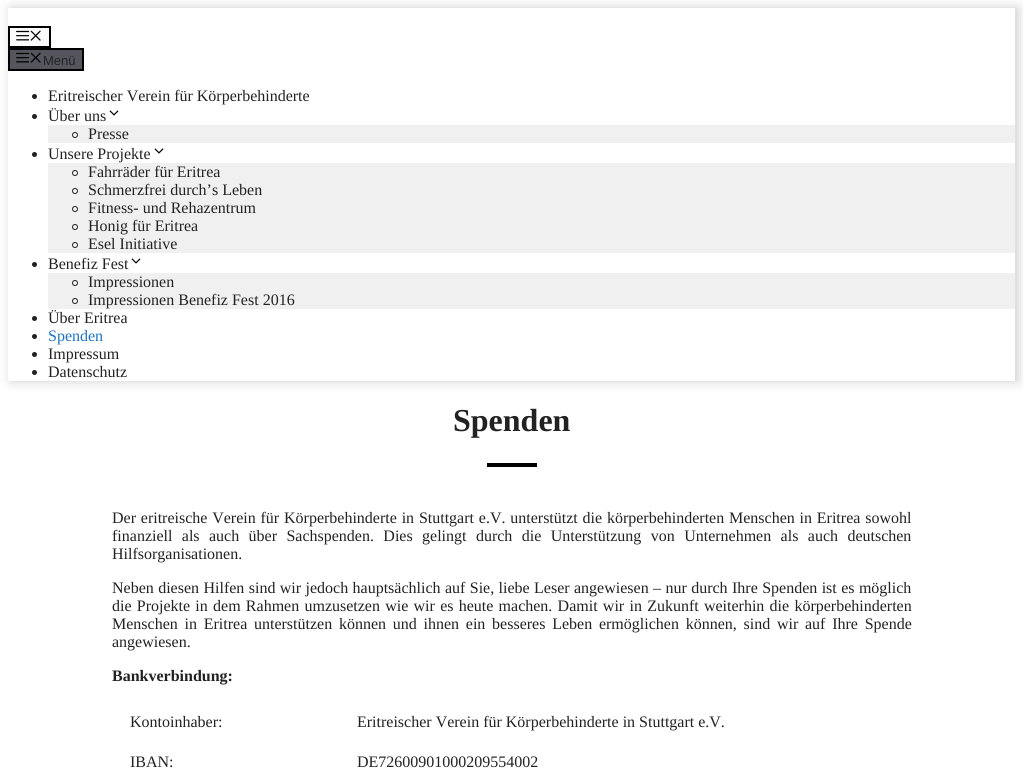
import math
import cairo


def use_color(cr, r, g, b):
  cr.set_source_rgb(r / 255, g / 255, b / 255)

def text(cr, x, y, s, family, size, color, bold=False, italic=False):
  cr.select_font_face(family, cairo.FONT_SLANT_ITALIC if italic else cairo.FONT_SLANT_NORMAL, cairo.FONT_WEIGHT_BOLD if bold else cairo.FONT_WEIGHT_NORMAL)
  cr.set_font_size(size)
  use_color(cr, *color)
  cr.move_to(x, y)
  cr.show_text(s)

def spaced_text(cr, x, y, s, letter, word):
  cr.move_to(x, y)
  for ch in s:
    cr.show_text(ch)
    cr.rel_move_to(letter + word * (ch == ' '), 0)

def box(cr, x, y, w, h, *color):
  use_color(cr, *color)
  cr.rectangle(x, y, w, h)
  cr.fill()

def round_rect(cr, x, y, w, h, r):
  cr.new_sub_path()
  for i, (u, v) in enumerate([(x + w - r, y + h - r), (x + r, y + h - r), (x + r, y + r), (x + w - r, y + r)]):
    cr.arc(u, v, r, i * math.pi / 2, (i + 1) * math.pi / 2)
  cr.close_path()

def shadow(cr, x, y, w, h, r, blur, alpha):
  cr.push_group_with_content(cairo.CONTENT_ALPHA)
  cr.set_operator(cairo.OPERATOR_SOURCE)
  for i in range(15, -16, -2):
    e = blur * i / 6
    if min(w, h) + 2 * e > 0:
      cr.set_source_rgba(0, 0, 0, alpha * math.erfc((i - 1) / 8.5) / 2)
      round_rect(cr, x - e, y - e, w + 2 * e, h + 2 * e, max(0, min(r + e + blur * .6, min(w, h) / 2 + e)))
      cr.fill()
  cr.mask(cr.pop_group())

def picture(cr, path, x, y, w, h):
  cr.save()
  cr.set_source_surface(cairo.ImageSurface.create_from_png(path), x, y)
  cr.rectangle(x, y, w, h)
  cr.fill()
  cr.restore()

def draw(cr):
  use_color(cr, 255, 255, 255)
  cr.paint()
  cr.save()
  cr.set_fill_rule(cairo.FILL_RULE_EVEN_ODD)
  cr.new_path()
  cr.move_to(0, 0)
  cr.line_to(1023, 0)
  cr.line_to(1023, 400)
  cr.line_to(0, 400)
  cr.close_path()
  cr.move_to(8, 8)
  cr.line_to(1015, 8)
  cr.line_to(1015, 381)
  cr.line_to(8, 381)
  cr.close_path()
  cr.clip()
  use_color(cr, 0, 0, 0)
  shadow(cr, 11, 8, 1007, 373, 0, 6, 0.2)
  cr.restore()
  use_color(cr, 250, 250, 250)
  cr.rectangle(9, 27, 41, 20)
  cr.fill_preserve()
  use_color(cr, 0, 0, 0)
  cr.stroke()
  picture(cr, "img_01.png", 16, 30, 13, 11)
  picture(cr, "img_02.png", 30, 30, 11, 11)
  use_color(cr, 85, 85, 94)
  cr.rectangle(9, 49, 74, 21)
  cr.fill_preserve()
  use_color(cr, 0, 0, 0)
  cr.stroke()
  picture(cr, "img_03.png", 16, 52, 13, 11)
  picture(cr, "img_04.png", 30, 52, 11, 11)
  use_color(cr, 34, 34, 34)
  cr.arc(34.5, 96.5, 2.5, 0, 2 * math.pi)
  cr.fill()
  picture(cr, "img_05.png", 109, 110, 10, 6)
  cr.arc(34.5, 116.5, 2.5, 0, 2 * math.pi)
  cr.fill()
  box(cr, 48, 125, 967, 18, 240, 240, 240)
  cr.arc(75, 135, 2.5, 0, 2 * math.pi)
  use_color(cr, 34, 34, 34)
  cr.set_line_width(1)
  cr.stroke()
  picture(cr, "img_05.png", 154, 148, 10, 6)
  cr.arc(34.5, 154.5, 2.5, 0, 2 * math.pi)
  cr.fill()
  box(cr, 48, 163, 967, 90, 240, 240, 240)
  cr.arc(75, 173, 2.5, 0, 2 * math.pi)
  use_color(cr, 34, 34, 34)
  cr.stroke()
  cr.arc(75, 191, 2.5, 0, 2 * math.pi)
  cr.stroke()
  cr.arc(75, 209, 2.5, 0, 2 * math.pi)
  cr.stroke()
  cr.arc(75, 227, 2.5, 0, 2 * math.pi)
  cr.stroke()
  cr.arc(75, 245, 2.5, 0, 2 * math.pi)
  cr.stroke()
  picture(cr, "img_05.png", 131, 258, 10, 6)
  cr.arc(34.5, 264.5, 2.5, 0, 2 * math.pi)
  cr.fill()
  box(cr, 48, 273, 967, 36, 240, 240, 240)
  cr.arc(75, 283, 2.5, 0, 2 * math.pi)
  use_color(cr, 34, 34, 34)
  cr.stroke()
  cr.arc(75, 301, 2.5, 0, 2 * math.pi)
  cr.stroke()
  cr.arc(34.5, 318.5, 2.5, 0, 2 * math.pi)
  cr.fill()
  cr.arc(34.5, 336.5, 2.5, 0, 2 * math.pi)
  cr.fill()
  cr.arc(34.5, 354.5, 2.5, 0, 2 * math.pi)
  cr.fill()
  cr.arc(34.5, 372.5, 2.5, 0, 2 * math.pi)
  cr.fill()
  box(cr, 487, 463, 50, 4, 0, 0, 0)
  text(cr, 43, 65, "Menü", "Liberation Sans", 13, (34, 34, 34))
  text(cr, 48, 101, "Eritreischer Verein für Körperbehinderte", "Liberation Serif", 16, (34, 34, 34))
  text(cr, 48, 121, "Über uns", "Liberation Serif", 16, (34, 34, 34))
  text(cr, 88, 139, "Presse", "Liberation Serif", 16, (34, 34, 34))
  text(cr, 48, 159, "Unsere Projekte", "Liberation Serif", 16, (34, 34, 34))
  text(cr, 88, 177, "Fahrräder für Eritrea", "Liberation Serif", 16, (34, 34, 34))
  text(cr, 88, 195, "Schmerzfrei durch’s Leben", "Liberation Serif", 16, (34, 34, 34))
  text(cr, 88, 213, "Fitness- und Rehazentrum", "Liberation Serif", 16, (34, 34, 34))
  text(cr, 88, 231, "Honig für Eritrea", "Liberation Serif", 16, (34, 34, 34))
  text(cr, 88, 249, "Esel Initiative", "Liberation Serif", 16, (34, 34, 34))
  text(cr, 48, 269, "Benefiz Fest", "Liberation Serif", 16, (34, 34, 34))
  text(cr, 88, 287, "Impressionen", "Liberation Serif", 16, (34, 34, 34))
  text(cr, 88, 305, "Impressionen Benefiz Fest 2016", "Liberation Serif", 16, (34, 34, 34))
  text(cr, 48, 323, "Über Eritrea", "Liberation Serif", 16, (34, 34, 34))
  text(cr, 48, 341, "Spenden", "Liberation Serif", 16, (30, 115, 190))
  text(cr, 48, 359, "Impressum", "Liberation Serif", 16, (34, 34, 34))
  text(cr, 48, 377, "Datenschutz", "Liberation Serif", 16, (34, 34, 34))
  text(cr, 453, 431, "Spenden", "Liberation Serif", 32, (34, 34, 34), bold=True)
  cr.select_font_face("Liberation Serif")
  cr.set_font_size(16)
  spaced_text(cr, 112, 523, "Der eritreische Verein für Körperbehinderte in Stuttgart e.V. unterstützt die körperbehinderten Menschen in Eritrea sowohl", 0, 0.8)
  spaced_text(cr, 112, 541, "finanziell als auch über Sachspenden. Dies gelingt durch die Unterstützung von Unternehmen als auch deutschen", 0, 5.4)
  text(cr, 112, 559, "Hilfsorganisationen.", "Liberation Serif", 16, (34, 34, 34))
  spaced_text(cr, 112, 593, "Neben diesen Hilfen sind wir jedoch hauptsächlich auf Sie, liebe Leser angewiesen – nur durch Ihre Spenden ist es möglich", 0, 0.4)
  spaced_text(cr, 112, 611, "die Projekte in dem Rahmen umzusetzen wie wir es heute machen. Damit wir in Zukunft weiterhin die körperbehinderten", 0, 1.25)
  spaced_text(cr, 112, 629, "Menschen in Eritrea unterstützen können und ihnen ein besseres Leben ermöglichen können, sind wir auf Ihre Spende", 0, 2.75)
  text(cr, 112, 647, "angewiesen.", "Liberation Serif", 16, (34, 34, 34))
  text(cr, 112, 681, "Bankverbindung:", "Liberation Serif", 16, (34, 34, 34), bold=True)
  text(cr, 130, 727, "Kontoinhaber:", "Liberation Serif", 16, (34, 34, 34))
  text(cr, 357, 727, "Eritreischer Verein für Körperbehinderte in Stuttgart e.V.", "Liberation Serif", 16, (34, 34, 34))
  text(cr, 130, 767, "IBAN:", "Liberation Serif", 16, (34, 34, 34))
  text(cr, 357, 767, "DE72600901000209554002", "Liberation Serif", 16, (34, 34, 34))


surface = cairo.ImageSurface(cairo.FORMAT_RGB24, 1023, 771)
cr = cairo.Context(surface)
options = cairo.FontOptions()
options.set_hint_metrics(cairo.HINT_METRICS_OFF)
options.set_hint_style(cairo.HINT_STYLE_NONE)
cr.set_font_options(options)
cr.set_miter_limit(4)
draw(cr)
surface.write_to_png("out.png")
